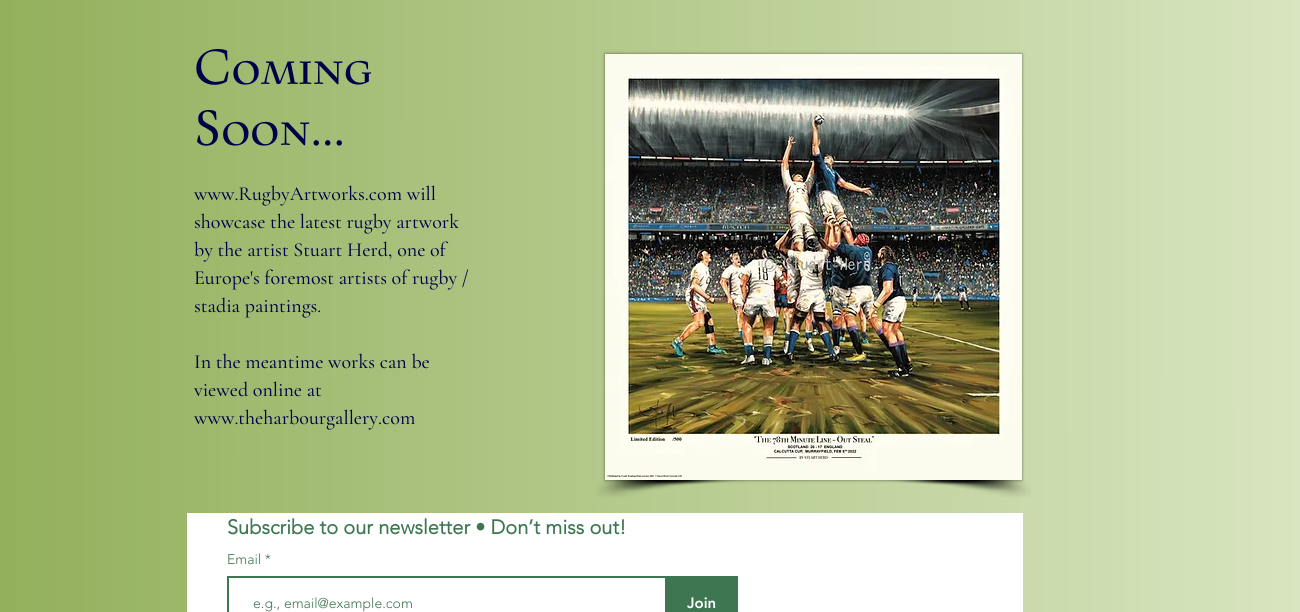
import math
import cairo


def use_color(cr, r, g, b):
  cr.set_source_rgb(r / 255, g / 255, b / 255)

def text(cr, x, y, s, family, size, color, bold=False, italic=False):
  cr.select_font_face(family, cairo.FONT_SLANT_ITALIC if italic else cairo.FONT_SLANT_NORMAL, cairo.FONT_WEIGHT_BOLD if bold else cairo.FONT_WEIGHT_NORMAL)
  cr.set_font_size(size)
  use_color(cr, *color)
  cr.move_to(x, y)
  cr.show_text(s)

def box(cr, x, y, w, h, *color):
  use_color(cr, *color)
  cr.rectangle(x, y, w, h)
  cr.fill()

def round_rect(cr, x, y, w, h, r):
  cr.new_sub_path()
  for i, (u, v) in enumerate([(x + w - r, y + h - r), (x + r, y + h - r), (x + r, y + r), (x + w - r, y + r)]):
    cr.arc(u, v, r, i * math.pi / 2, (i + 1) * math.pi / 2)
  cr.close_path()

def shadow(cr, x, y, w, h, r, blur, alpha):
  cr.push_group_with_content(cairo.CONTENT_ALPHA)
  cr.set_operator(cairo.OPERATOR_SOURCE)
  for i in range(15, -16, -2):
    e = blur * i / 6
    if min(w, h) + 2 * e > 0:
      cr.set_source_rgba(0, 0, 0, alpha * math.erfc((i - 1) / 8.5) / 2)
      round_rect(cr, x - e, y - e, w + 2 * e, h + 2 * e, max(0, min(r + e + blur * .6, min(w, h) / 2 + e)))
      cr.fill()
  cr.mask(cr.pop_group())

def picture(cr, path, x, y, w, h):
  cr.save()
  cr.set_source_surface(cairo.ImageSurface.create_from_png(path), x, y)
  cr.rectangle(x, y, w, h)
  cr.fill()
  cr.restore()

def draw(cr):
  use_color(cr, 255, 255, 255)
  cr.paint()
  gradient = cairo.LinearGradient(0, 373, 1300, 372)
  gradient.add_color_stop_rgba(0, 0.576, 0.69, 0.361, 1)
  gradient.add_color_stop_rgba(1, 0.847, 0.898, 0.753, 1)
  cr.set_source(gradient)
  cr.rectangle(0, 0, 1300, 612)
  cr.fill()
  use_color(cr, 0, 0, 0)
  shadow(cr, 605, 54, 417, 426, 0, 1.5, 0.5)
  picture(cr, "img_01.png", 605, 54, 417, 426)
  picture(cr, "img_02.png", 596, 480, 149, 18)
  picture(cr, "img_03.png", 877, 480, 154, 18)
  box(cr, 187, 513, 836, 99, 255, 255, 255)
  cr.rectangle(228, 577, 442, 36)
  use_color(cr, 63, 118, 82)
  cr.stroke()
  box(cr, 665, 576, 73, 36, 63, 118, 82)
  text(cr, 194, 84, "Coming", "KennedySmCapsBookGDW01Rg", 50, (0, 0, 74))
  text(cr, 194, 145, "Soon...", "KennedySmCapsBookGDW01Rg", 50, (0, 0, 74))
  text(cr, 194, 200, "www.RugbyArtworks.com will", "Cormorant Garamond Medium", 20, (0, 0, 74))
  text(cr, 194, 228, "showcase the latest rugby artwork", "Cormorant Garamond Medium", 20, (0, 0, 74))
  text(cr, 194, 256, "by the artist Stuart Herd, one of", "Cormorant Garamond Medium", 20, (0, 0, 74))
  text(cr, 194, 284, "Europe's foremost artists of rugby /", "Cormorant Garamond Medium", 20, (0, 0, 74))
  text(cr, 194, 312, "stadia paintings.", "Cormorant Garamond Medium", 20, (0, 0, 74))
  text(cr, 194, 368, "In the meantime works can be", "Cormorant Garamond Medium", 20, (0, 0, 74))
  text(cr, 194, 396, "viewed online at", "Cormorant Garamond Medium", 20, (0, 0, 74))
  text(cr, 194, 424, "www.theharbourgallery.com", "Cormorant Garamond Medium", 20, (0, 0, 74))
  text(cr, 227, 534, "Subscribe to our newsletter • Don’t miss out!", "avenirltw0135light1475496", 20, (63, 118, 82), bold=True)
  text(cr, 227, 564, "Email *", "avenirltw0135light1475496 Light", 14, (63, 118, 82))
  text(cr, 253, 608, "e.g., email@example.com", "avenirltw0135light1475496 Light", 14, (63, 118, 82))
  text(cr, 687, 608, "Join", "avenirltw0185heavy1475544 Black", 15, (255, 255, 255))


surface = cairo.ImageSurface(cairo.FORMAT_RGB24, 1300, 612)
cr = cairo.Context(surface)
options = cairo.FontOptions()
options.set_hint_metrics(cairo.HINT_METRICS_OFF)
options.set_hint_style(cairo.HINT_STYLE_NONE)
cr.set_font_options(options)
cr.set_miter_limit(4)
draw(cr)
surface.write_to_png("out.png")
